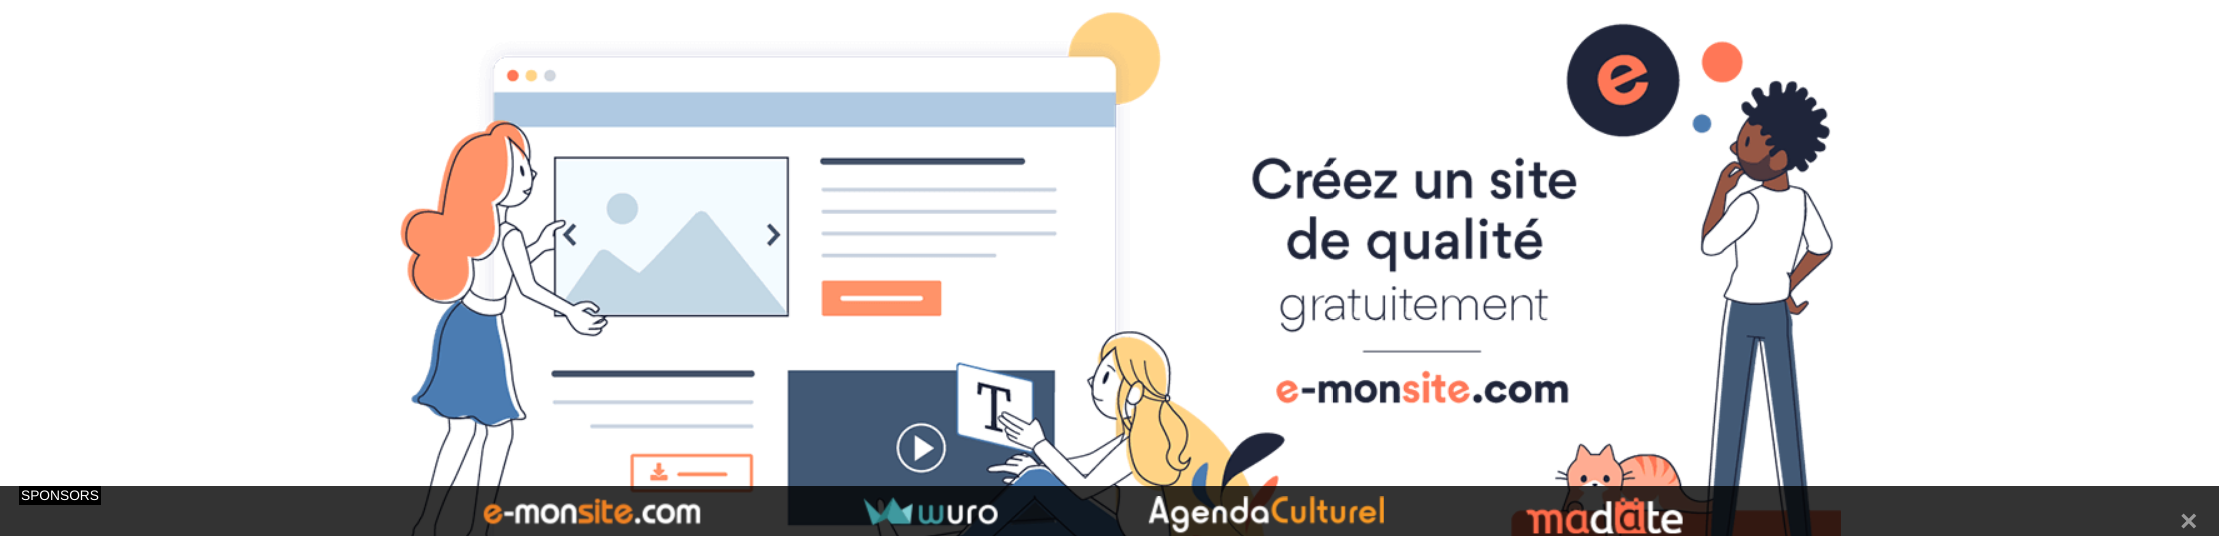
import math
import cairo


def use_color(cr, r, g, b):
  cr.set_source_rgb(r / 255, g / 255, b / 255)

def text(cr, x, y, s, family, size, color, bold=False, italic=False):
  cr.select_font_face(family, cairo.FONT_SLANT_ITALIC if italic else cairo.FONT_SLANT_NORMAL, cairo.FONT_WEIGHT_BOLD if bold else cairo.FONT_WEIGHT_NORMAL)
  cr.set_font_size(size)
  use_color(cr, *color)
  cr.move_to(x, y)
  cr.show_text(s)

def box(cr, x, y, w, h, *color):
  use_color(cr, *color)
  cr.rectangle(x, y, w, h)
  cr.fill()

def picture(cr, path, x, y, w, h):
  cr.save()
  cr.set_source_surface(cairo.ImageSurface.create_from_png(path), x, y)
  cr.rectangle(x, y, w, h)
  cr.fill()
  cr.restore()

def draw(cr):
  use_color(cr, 255, 255, 255)
  cr.paint()
  picture(cr, "img_01.png", 400, 12, 1441, 524)
  cr.set_source_rgba(0, 0, 0, 0.8)
  cr.rectangle(0, 486, 2219, 50)
  cr.fill()
  box(cr, 19, 486, 82, 19, 0, 0, 0)
  picture(cr, "img_02.png", 483, 498, 218, 27)
  picture(cr, "img_03.png", 863, 497, 135, 29)
  picture(cr, "img_04.png", 1148, 496, 236, 38)
  picture(cr, "img_05.png", 1525, 497, 158, 37)
  text(cr, 21, 500, "SPONSORS", "Liberation Sans", 13.75, (255, 255, 255))
  text(cr, 2180, 531, "×", "Liberation Sans", 30, (153, 153, 153), bold=True)


surface = cairo.ImageSurface(cairo.FORMAT_RGB24, 2219, 536)
cr = cairo.Context(surface)
options = cairo.FontOptions()
options.set_hint_metrics(cairo.HINT_METRICS_OFF)
options.set_hint_style(cairo.HINT_STYLE_NONE)
cr.set_font_options(options)
cr.set_miter_limit(4)
draw(cr)
surface.write_to_png("out.png")
